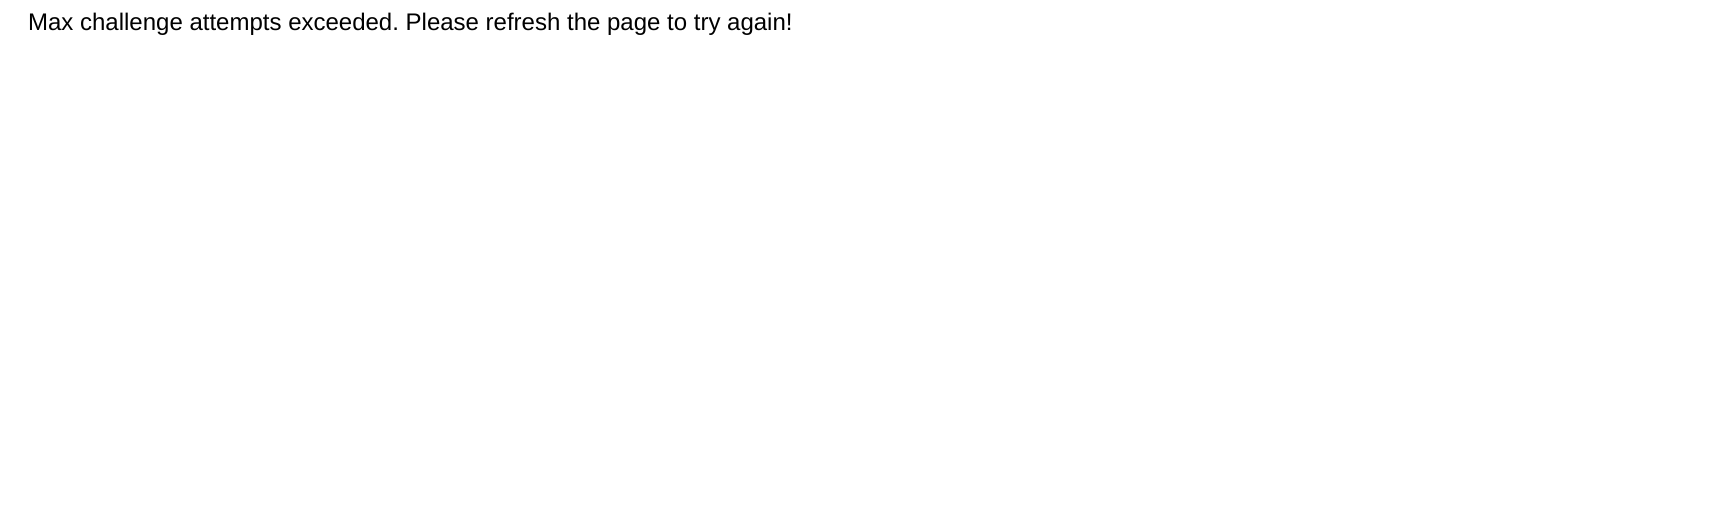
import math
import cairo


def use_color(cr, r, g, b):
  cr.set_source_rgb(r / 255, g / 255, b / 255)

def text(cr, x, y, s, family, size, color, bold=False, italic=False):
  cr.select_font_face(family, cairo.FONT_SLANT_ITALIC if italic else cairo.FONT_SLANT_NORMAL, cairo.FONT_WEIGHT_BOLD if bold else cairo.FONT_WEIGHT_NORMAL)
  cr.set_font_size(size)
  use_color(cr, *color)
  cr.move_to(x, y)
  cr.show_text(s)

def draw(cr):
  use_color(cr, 255, 255, 255)
  cr.paint()
  text(cr, 28, 30, "Max challenge attempts exceeded. Please refresh the page to try again!", "Liberation Sans", 24, (0, 0, 0))


surface = cairo.ImageSurface(cairo.FORMAT_RGB24, 1720, 521)
cr = cairo.Context(surface)
options = cairo.FontOptions()
options.set_hint_metrics(cairo.HINT_METRICS_OFF)
options.set_hint_style(cairo.HINT_STYLE_NONE)
cr.set_font_options(options)
cr.set_miter_limit(4)
draw(cr)
surface.write_to_png("out.png")
